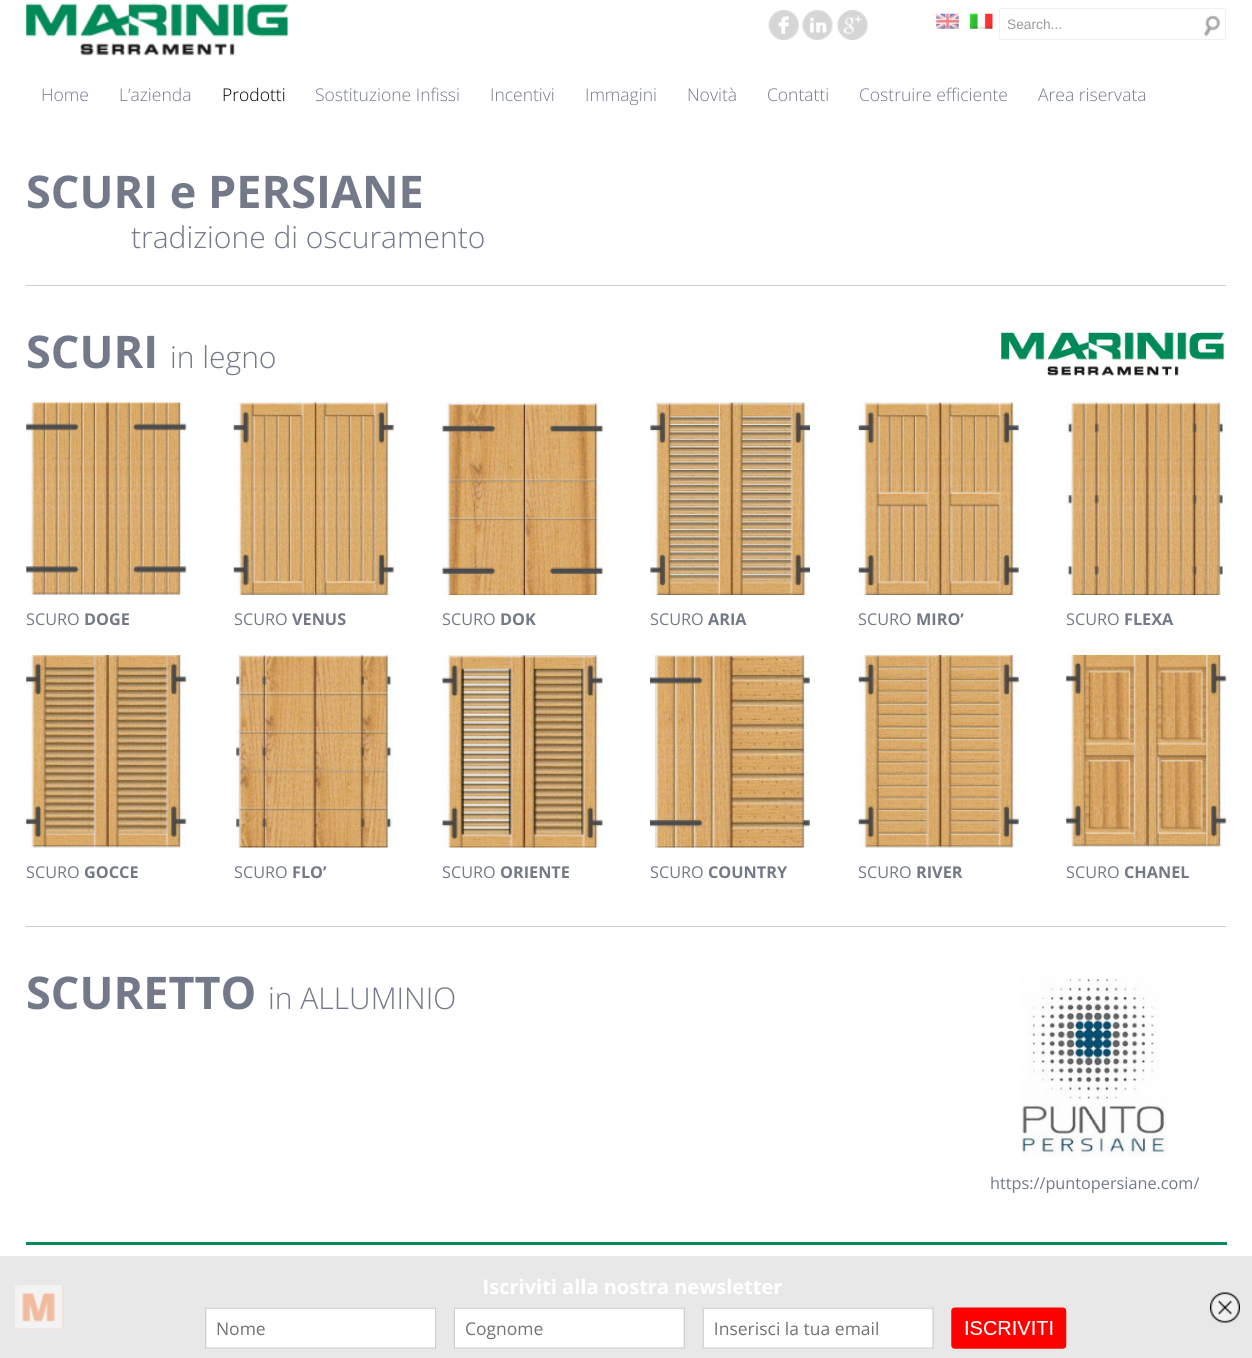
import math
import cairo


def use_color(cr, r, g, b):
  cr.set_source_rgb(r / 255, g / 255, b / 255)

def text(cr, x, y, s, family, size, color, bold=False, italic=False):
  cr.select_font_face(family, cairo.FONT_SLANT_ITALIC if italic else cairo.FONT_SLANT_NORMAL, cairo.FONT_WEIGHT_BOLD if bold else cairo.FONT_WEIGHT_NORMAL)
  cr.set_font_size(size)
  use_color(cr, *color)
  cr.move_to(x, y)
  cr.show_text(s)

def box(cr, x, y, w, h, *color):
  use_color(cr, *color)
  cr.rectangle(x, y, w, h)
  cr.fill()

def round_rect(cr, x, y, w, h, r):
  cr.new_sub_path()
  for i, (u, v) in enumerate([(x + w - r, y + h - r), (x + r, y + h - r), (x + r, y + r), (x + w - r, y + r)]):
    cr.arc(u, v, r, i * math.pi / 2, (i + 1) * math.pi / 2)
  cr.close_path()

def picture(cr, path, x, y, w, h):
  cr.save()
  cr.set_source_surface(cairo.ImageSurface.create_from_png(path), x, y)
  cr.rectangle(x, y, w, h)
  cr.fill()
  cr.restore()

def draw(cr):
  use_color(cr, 255, 255, 255)
  cr.paint()
  picture(cr, "img_01.png", 26, 3, 262, 53)
  picture(cr, "img_02.png", 768, 10, 31, 30)
  picture(cr, "img_03.png", 802, 10, 31, 30)
  picture(cr, "img_04.png", 837, 10, 31, 30)
  picture(cr, "img_05.png", 936, 13, 23, 16)
  picture(cr, "img_06.png", 970, 13, 23, 16)
  round_rect(cr, 999.5, 8.5, 226, 31, 2)
  use_color(cr, 240, 240, 240)
  cr.set_line_width(1)
  cr.stroke()
  picture(cr, "img_07.png", 1203, 15, 18, 22)
  box(cr, 26, 285, 1200, 1, 204, 204, 204)
  picture(cr, "img_08.png", 1001, 332, 223, 44)
  picture(cr, "img_09.png", 26, 402, 161, 193)
  picture(cr, "img_10.png", 233, 402, 161, 193)
  picture(cr, "img_11.png", 442, 402, 161, 193)
  picture(cr, "img_12.png", 650, 402, 160, 193)
  picture(cr, "img_13.png", 858, 402, 161, 193)
  picture(cr, "img_14.png", 1066, 402, 160, 193)
  picture(cr, "img_15.png", 26, 655, 161, 193)
  picture(cr, "img_16.png", 234, 655, 160, 193)
  picture(cr, "img_17.png", 442, 655, 161, 193)
  picture(cr, "img_18.png", 650, 655, 160, 193)
  picture(cr, "img_19.png", 858, 655, 161, 193)
  picture(cr, "img_20.png", 1066, 655, 161, 193)
  box(cr, 26, 926, 1200, 1, 204, 204, 204)
  picture(cr, "img_21.png", 1021, 977, 146, 180)
  box(cr, 26, 1242, 1201, 3, 0, 141, 90)
  picture(cr, "img_22.png", 0, 1256, 1252, 102)
  text(cr, 1007, 29, "Search...", "Liberation Sans", 13.75, (153, 153, 153))
  text(cr, 41, 101, "Home", "Open Sans Light", 17.5, (115, 121, 136))
  text(cr, 119, 101, "L’azienda", "Open Sans Light", 17.5, (115, 121, 136))
  text(cr, 222, 101, "Prodotti", "Open Sans Light", 17.5, (0, 0, 0))
  text(cr, 315, 101, "Sostituzione Infissi", "Open Sans Light", 17.5, (115, 121, 136))
  text(cr, 490, 101, "Incentivi", "Open Sans Light", 17.5, (115, 121, 136))
  text(cr, 585, 101, "Immagini", "Open Sans Light", 17.5, (115, 121, 136))
  text(cr, 687, 101, "Novità", "Open Sans Light", 17.5, (115, 121, 136))
  text(cr, 767, 101, "Contatti", "Open Sans Light", 17.5, (115, 121, 136))
  text(cr, 859, 101, "Costruire efficiente", "Open Sans Light", 17.5, (115, 121, 136))
  text(cr, 1038, 101, "Area riservata", "Open Sans Light", 17.5, (115, 121, 136))
  text(cr, 26, 208, "SCURI e PERSIANE", "Open Sans", 45, (115, 121, 136), bold=True)
  text(cr, 131, 248, "tradizione di oscuramento", "Open Sans Light", 30, (115, 121, 136))
  text(cr, 26, 368, "SCURI", "Open Sans", 45, (115, 121, 136), bold=True)
  text(cr, 170, 368, "in legno", "Open Sans Light", 30, (115, 121, 136))
  text(cr, 26, 625, "SCURO", "Open Sans", 16.25, (115, 121, 136))
  text(cr, 84, 625, "DOGE", "Open Sans", 16.25, (115, 121, 136), bold=True)
  text(cr, 234, 625, "SCURO", "Open Sans", 16.25, (115, 121, 136))
  text(cr, 292, 625, "VENUS", "Open Sans", 16.25, (115, 121, 136), bold=True)
  text(cr, 442, 625, "SCURO", "Open Sans", 16.25, (115, 121, 136))
  text(cr, 500, 625, "DOK", "Open Sans", 16.25, (115, 121, 136), bold=True)
  text(cr, 650, 625, "SCURO", "Open Sans", 16.25, (115, 121, 136))
  text(cr, 708, 625, "ARIA", "Open Sans", 16.25, (115, 121, 136), bold=True)
  text(cr, 858, 625, "SCURO", "Open Sans", 16.25, (115, 121, 136))
  text(cr, 916, 625, "MIRO’", "Open Sans", 16.25, (115, 121, 136), bold=True)
  text(cr, 1066, 625, "SCURO", "Open Sans", 16.25, (115, 121, 136))
  text(cr, 1124, 625, "FLEXA", "Open Sans", 16.25, (115, 121, 136), bold=True)
  text(cr, 26, 878, "SCURO", "Open Sans", 16.25, (115, 121, 136))
  text(cr, 84, 878, "GOCCE", "Open Sans", 16.25, (115, 121, 136), bold=True)
  text(cr, 234, 878, "SCURO", "Open Sans", 16.25, (115, 121, 136))
  text(cr, 292, 878, "FLO’", "Open Sans", 16.25, (115, 121, 136), bold=True)
  text(cr, 442, 878, "SCURO", "Open Sans", 16.25, (115, 121, 136))
  text(cr, 500, 878, "ORIENTE", "Open Sans", 16.25, (115, 121, 136), bold=True)
  text(cr, 650, 878, "SCURO", "Open Sans", 16.25, (115, 121, 136))
  text(cr, 708, 878, "COUNTRY", "Open Sans", 16.25, (115, 121, 136), bold=True)
  text(cr, 858, 878, "SCURO", "Open Sans", 16.25, (115, 121, 136))
  text(cr, 916, 878, "RIVER", "Open Sans", 16.25, (115, 121, 136), bold=True)
  text(cr, 1066, 878, "SCURO", "Open Sans", 16.25, (115, 121, 136))
  text(cr, 1124, 878, "CHANEL", "Open Sans", 16.25, (115, 121, 136), bold=True)
  text(cr, 26, 1009, "SCURETTO", "Open Sans", 45, (115, 121, 136), bold=True)
  text(cr, 268, 1009, "in ALLUMINIO", "Open Sans Light", 30, (115, 121, 136))
  text(cr, 990, 1189, "https://puntopersiane.com/", "Open Sans", 16.25, (115, 121, 136))


surface = cairo.ImageSurface(cairo.FORMAT_RGB24, 1252, 1358)
cr = cairo.Context(surface)
options = cairo.FontOptions()
options.set_hint_metrics(cairo.HINT_METRICS_OFF)
options.set_hint_style(cairo.HINT_STYLE_NONE)
cr.set_font_options(options)
cr.set_miter_limit(4)
draw(cr)
surface.write_to_png("out.png")
